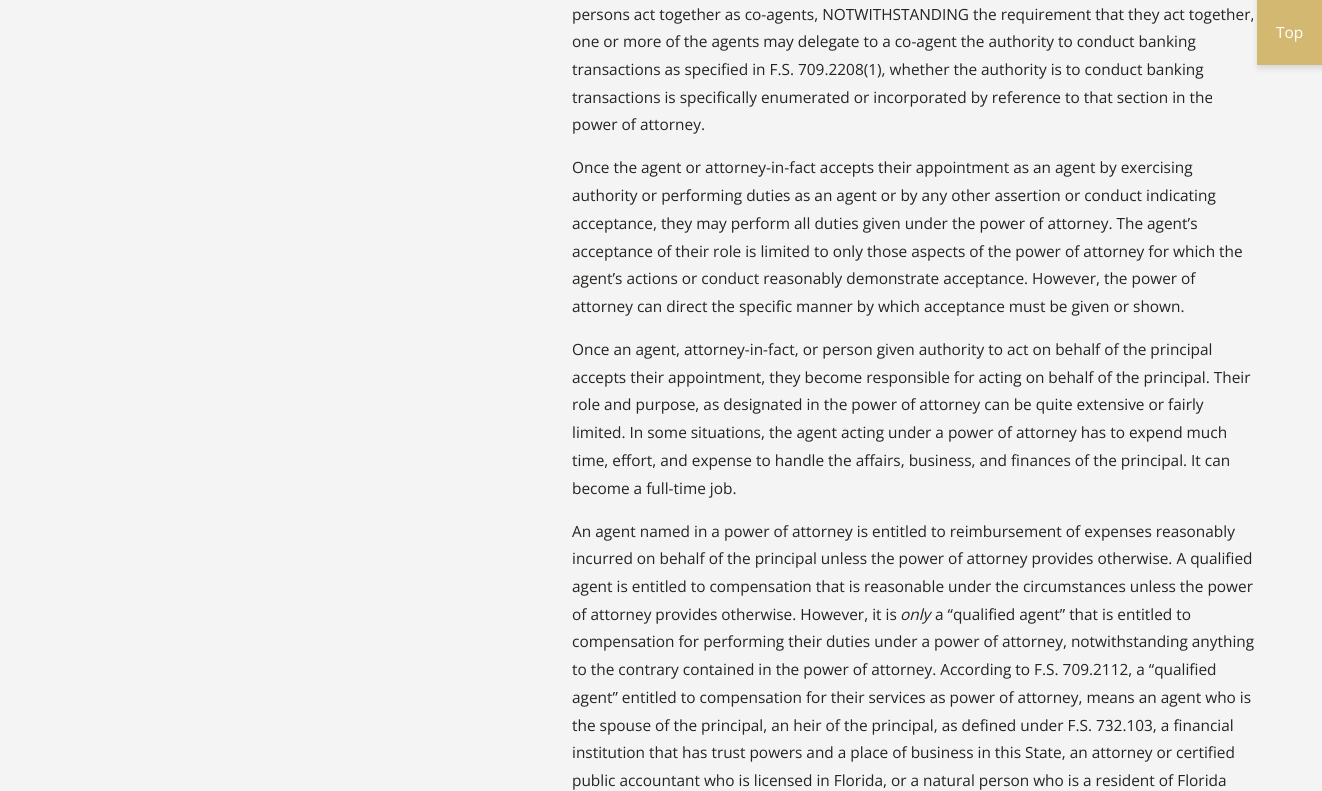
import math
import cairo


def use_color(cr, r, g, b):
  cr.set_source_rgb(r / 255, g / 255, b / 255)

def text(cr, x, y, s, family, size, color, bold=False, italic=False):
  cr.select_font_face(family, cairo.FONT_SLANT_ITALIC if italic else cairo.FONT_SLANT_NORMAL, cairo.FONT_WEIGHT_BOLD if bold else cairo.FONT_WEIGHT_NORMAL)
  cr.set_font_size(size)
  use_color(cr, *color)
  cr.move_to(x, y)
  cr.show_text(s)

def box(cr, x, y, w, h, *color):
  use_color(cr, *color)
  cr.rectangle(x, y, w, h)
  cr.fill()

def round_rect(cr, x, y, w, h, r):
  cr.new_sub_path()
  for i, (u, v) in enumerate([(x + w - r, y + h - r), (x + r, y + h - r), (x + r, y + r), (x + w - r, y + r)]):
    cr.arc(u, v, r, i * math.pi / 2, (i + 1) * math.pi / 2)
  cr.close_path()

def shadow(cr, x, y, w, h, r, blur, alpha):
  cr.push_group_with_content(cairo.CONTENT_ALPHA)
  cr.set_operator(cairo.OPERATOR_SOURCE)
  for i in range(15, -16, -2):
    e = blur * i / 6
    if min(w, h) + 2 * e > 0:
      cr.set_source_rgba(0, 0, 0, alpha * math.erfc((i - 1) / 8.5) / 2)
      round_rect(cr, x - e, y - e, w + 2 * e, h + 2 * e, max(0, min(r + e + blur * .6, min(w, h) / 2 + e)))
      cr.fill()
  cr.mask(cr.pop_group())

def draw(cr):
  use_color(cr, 244, 244, 244)
  cr.paint()
  use_color(cr, 0, 0, 0)
  shadow(cr, 1259, 2, 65, 65, 0, 4, 0.16)
  box(cr, 1257, 0, 65, 65, 211, 184, 114)
  text(cr, 572, 20, "persons act together as co-agents, NOTWITHSTANDING the requirement that they act together,", "Open Sans", 15.4, (36, 36, 33))
  text(cr, 572, 47, "one or more of the agents may delegate to a co-agent the authority to conduct banking", "Open Sans", 15.4, (36, 36, 33))
  text(cr, 572, 75, "transactions as specified in F.S. 709.2208(1), whether the authority is to conduct banking", "Open Sans", 15.4, (36, 36, 33))
  text(cr, 572, 103, "transactions is specifically enumerated or incorporated by reference to that section in the", "Open Sans", 15.4, (36, 36, 33))
  text(cr, 572, 130, "power of attorney.", "Open Sans", 15.4, (36, 36, 33))
  text(cr, 572, 173, "Once the agent or attorney-in-fact accepts their appointment as an agent by exercising", "Open Sans", 15.4, (36, 36, 33))
  text(cr, 572, 201, "authority or performing duties as an agent or by any other assertion or conduct indicating", "Open Sans", 15.4, (36, 36, 33))
  text(cr, 572, 229, "acceptance, they may perform all duties given under the power of attorney. The agent’s", "Open Sans", 15.4, (36, 36, 33))
  text(cr, 572, 257, "acceptance of their role is limited to only those aspects of the power of attorney for which the", "Open Sans", 15.4, (36, 36, 33))
  text(cr, 572, 284, "agent’s actions or conduct reasonably demonstrate acceptance. However, the power of", "Open Sans", 15.4, (36, 36, 33))
  text(cr, 572, 312, "attorney can direct the specific manner by which acceptance must be given or shown.", "Open Sans", 15.4, (36, 36, 33))
  text(cr, 572, 355, "Once an agent, attorney-in-fact, or person given authority to act on behalf of the principal", "Open Sans", 15.4, (36, 36, 33))
  text(cr, 572, 383, "accepts their appointment, they become responsible for acting on behalf of the principal. Their", "Open Sans", 15.4, (36, 36, 33))
  text(cr, 572, 410, "role and purpose, as designated in the power of attorney can be quite extensive or fairly", "Open Sans", 15.4, (36, 36, 33))
  text(cr, 572, 438, "limited. In some situations, the agent acting under a power of attorney has to expend much", "Open Sans", 15.4, (36, 36, 33))
  text(cr, 572, 466, "time, effort, and expense to handle the affairs, business, and finances of the principal. It can", "Open Sans", 15.4, (36, 36, 33))
  text(cr, 572, 494, "become a full-time job.", "Open Sans", 15.4, (36, 36, 33))
  text(cr, 572, 537, "An agent named in a power of attorney is entitled to reimbursement of expenses reasonably", "Open Sans", 15.4, (36, 36, 33))
  text(cr, 572, 564, "incurred on behalf of the principal unless the power of attorney provides otherwise. A qualified", "Open Sans", 15.4, (36, 36, 33))
  text(cr, 572, 592, "agent is entitled to compensation that is reasonable under the circumstances unless the power", "Open Sans", 15.4, (36, 36, 33))
  text(cr, 572, 620, "of attorney provides otherwise. However, it is", "Open Sans", 15.4, (36, 36, 33))
  text(cr, 900, 620, "only", "Open Sans", 15.4, (36, 36, 33), italic=True)
  text(cr, 935, 620, "a “qualified agent” that is entitled to", "Open Sans", 15.4, (36, 36, 33))
  text(cr, 572, 647, "compensation for performing their duties under a power of attorney, notwithstanding anything", "Open Sans", 15.4, (36, 36, 33))
  text(cr, 572, 675, "to the contrary contained in the power of attorney. According to F.S. 709.2112, a “qualified", "Open Sans", 15.4, (36, 36, 33))
  text(cr, 572, 703, "agent” entitled to compensation for their services as power of attorney, means an agent who is", "Open Sans", 15.4, (36, 36, 33))
  text(cr, 572, 731, "the spouse of the principal, an heir of the principal, as defined under F.S. 732.103, a financial", "Open Sans", 15.4, (36, 36, 33))
  text(cr, 572, 758, "institution that has trust powers and a place of business in this State, an attorney or certified", "Open Sans", 15.4, (36, 36, 33))
  text(cr, 572, 786, "public accountant who is licensed in Florida, or a natural person who is a resident of Florida", "Open Sans", 15.4, (36, 36, 33))
  text(cr, 1276, 38, "Top", "Open Sans", 15.4, (255, 255, 255))


surface = cairo.ImageSurface(cairo.FORMAT_RGB24, 1322, 791)
cr = cairo.Context(surface)
options = cairo.FontOptions()
options.set_hint_metrics(cairo.HINT_METRICS_OFF)
options.set_hint_style(cairo.HINT_STYLE_NONE)
cr.set_font_options(options)
cr.set_miter_limit(4)
draw(cr)
surface.write_to_png("out.png")
